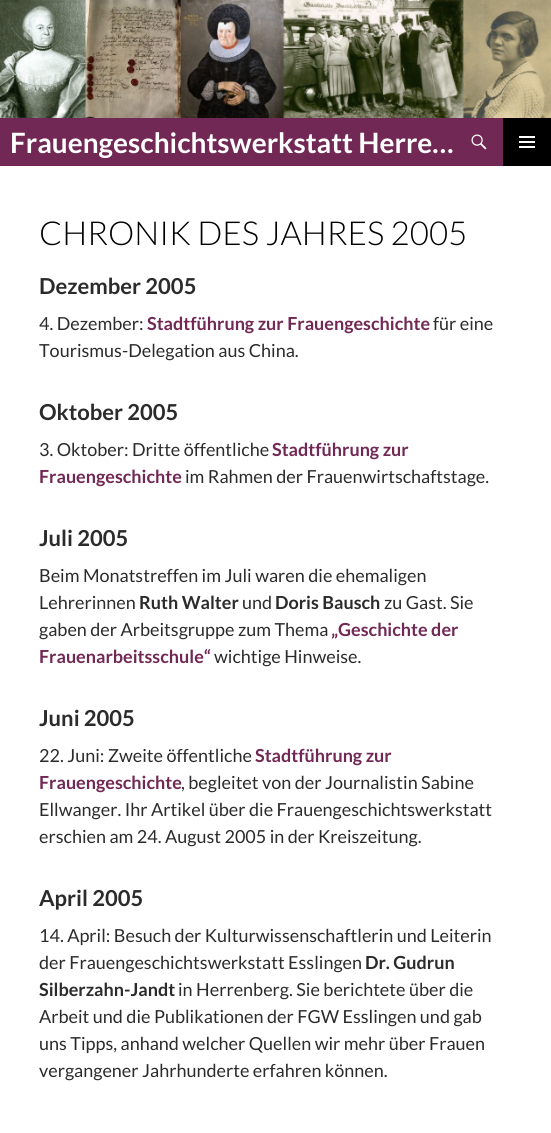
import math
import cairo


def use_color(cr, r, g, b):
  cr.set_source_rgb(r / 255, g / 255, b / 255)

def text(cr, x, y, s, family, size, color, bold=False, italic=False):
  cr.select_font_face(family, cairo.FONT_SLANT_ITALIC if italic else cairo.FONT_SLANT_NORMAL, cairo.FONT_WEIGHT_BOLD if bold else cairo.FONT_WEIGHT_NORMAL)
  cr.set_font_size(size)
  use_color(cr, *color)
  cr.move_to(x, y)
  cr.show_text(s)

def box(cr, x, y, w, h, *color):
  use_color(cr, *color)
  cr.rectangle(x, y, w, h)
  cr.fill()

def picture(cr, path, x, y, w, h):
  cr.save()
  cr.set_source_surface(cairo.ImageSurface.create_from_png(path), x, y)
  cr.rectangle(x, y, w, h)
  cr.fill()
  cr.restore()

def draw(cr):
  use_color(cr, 255, 255, 255)
  cr.paint()
  picture(cr, "img_01.png", 0, 0, 551, 118)
  box(cr, 0, 118, 503, 48, 114, 40, 84)
  picture(cr, "img_02.png", 471, 134, 16, 16)
  box(cr, 503, 118, 48, 48, 0, 0, 0)
  picture(cr, "img_03.png", 519, 136, 16, 12)
  text(cr, 10, 153, "Frauengeschichtswerkstatt Herre…", "Lato", 28, (255, 255, 255), bold=True)
  text(cr, 39, 245, "CHRONIK DES JAHRES 2005", "Lato Light", 33, (0, 0, 0))
  text(cr, 39, 294, "Dezember 2005", "Lato", 22, (43, 43, 43), bold=True)
  text(cr, 39, 330, "4. Dezember:", "Lato", 18, (43, 43, 43))
  text(cr, 147, 330, "Stadtführung zur Frauengeschichte", "Lato", 18, (114, 40, 84), bold=True)
  text(cr, 433, 330, "für eine", "Lato", 18, (43, 43, 43))
  text(cr, 39, 357, "Tourismus-Delegation aus China.", "Lato", 18, (43, 43, 43))
  text(cr, 39, 420, "Oktober 2005", "Lato", 22, (43, 43, 43), bold=True)
  text(cr, 39, 456, "3. Oktober: Dritte öffentliche", "Lato", 18, (43, 43, 43))
  text(cr, 272, 456, "Stadtführung zur", "Lato", 18, (114, 40, 84), bold=True)
  text(cr, 39, 483, "Frauengeschichte", "Lato", 18, (114, 40, 84), bold=True)
  text(cr, 185, 483, "im Rahmen der Frauenwirtschaftstage.", "Lato", 18, (43, 43, 43))
  text(cr, 39, 546, "Juli 2005", "Lato", 22, (43, 43, 43), bold=True)
  text(cr, 39, 582, "Beim Monatstreffen im Juli waren die ehemaligen", "Lato", 18, (43, 43, 43))
  text(cr, 39, 609, "Lehrerinnen", "Lato", 18, (43, 43, 43))
  text(cr, 139, 609, "Ruth Walter", "Lato", 18, (43, 43, 43), bold=True)
  text(cr, 242, 609, "und", "Lato", 18, (43, 43, 43))
  text(cr, 275, 609, "Doris Bausch", "Lato", 18, (43, 43, 43), bold=True)
  text(cr, 384, 609, "zu Gast. Sie", "Lato", 18, (43, 43, 43))
  text(cr, 39, 636, "gaben der Arbeitsgruppe zum Thema", "Lato", 18, (43, 43, 43))
  text(cr, 331, 636, "„Geschichte der", "Lato", 18, (114, 40, 84), bold=True)
  text(cr, 39, 663, "Frauenarbeitsschule“", "Lato", 18, (114, 40, 84), bold=True)
  text(cr, 214, 663, "wichtige Hinweise.", "Lato", 18, (43, 43, 43))
  text(cr, 39, 726, "Juni 2005", "Lato", 22, (43, 43, 43), bold=True)
  text(cr, 39, 762, "22. Juni: Zweite öffentliche", "Lato", 18, (43, 43, 43))
  text(cr, 255, 762, "Stadtführung zur", "Lato", 18, (114, 40, 84), bold=True)
  text(cr, 39, 789, "Frauengeschichte", "Lato", 18, (114, 40, 84), bold=True)
  text(cr, 181, 789, ", begleitet von der Journalistin Sabine", "Lato", 18, (43, 43, 43))
  text(cr, 39, 816, "Ellwanger. Ihr Artikel über die Frauengeschichtswerkstatt", "Lato", 18, (43, 43, 43))
  text(cr, 39, 843, "erschien am 24. August 2005 in der Kreiszeitung.", "Lato", 18, (43, 43, 43))
  text(cr, 39, 906, "April 2005", "Lato", 22, (43, 43, 43), bold=True)
  text(cr, 39, 942, "14. April: Besuch der Kulturwissenschaftlerin und Leiterin", "Lato", 18, (43, 43, 43))
  text(cr, 39, 969, "der Frauengeschichtswerkstatt Esslingen", "Lato", 18, (43, 43, 43))
  text(cr, 365, 969, "Dr. Gudrun", "Lato", 18, (43, 43, 43), bold=True)
  text(cr, 39, 996, "Silberzahn-Jandt", "Lato", 18, (43, 43, 43), bold=True)
  text(cr, 178, 996, "in Herrenberg. Sie berichtete über die", "Lato", 18, (43, 43, 43))
  text(cr, 39, 1023, "Arbeit und die Publikationen der FGW Esslingen und gab", "Lato", 18, (43, 43, 43))
  text(cr, 39, 1050, "uns Tipps, anhand welcher Quellen wir mehr über Frauen", "Lato", 18, (43, 43, 43))
  text(cr, 39, 1077, "vergangener Jahrhunderte erfahren können.", "Lato", 18, (43, 43, 43))


surface = cairo.ImageSurface(cairo.FORMAT_RGB24, 551, 1133)
cr = cairo.Context(surface)
options = cairo.FontOptions()
options.set_hint_metrics(cairo.HINT_METRICS_OFF)
options.set_hint_style(cairo.HINT_STYLE_NONE)
cr.set_font_options(options)
cr.set_miter_limit(4)
draw(cr)
surface.write_to_png("out.png")
